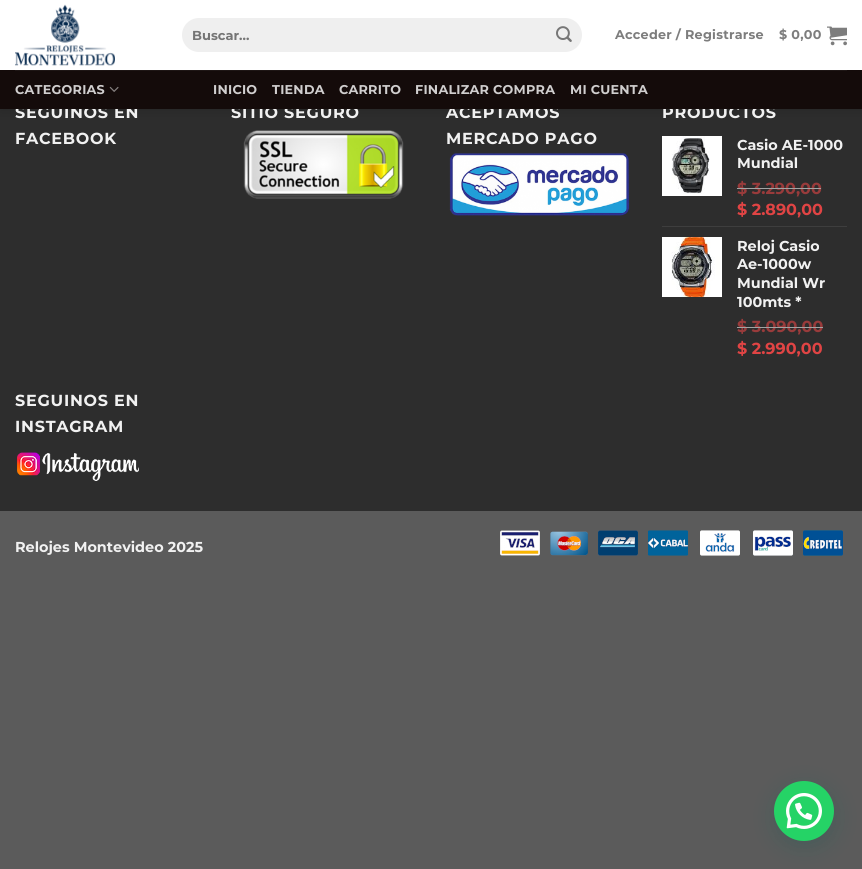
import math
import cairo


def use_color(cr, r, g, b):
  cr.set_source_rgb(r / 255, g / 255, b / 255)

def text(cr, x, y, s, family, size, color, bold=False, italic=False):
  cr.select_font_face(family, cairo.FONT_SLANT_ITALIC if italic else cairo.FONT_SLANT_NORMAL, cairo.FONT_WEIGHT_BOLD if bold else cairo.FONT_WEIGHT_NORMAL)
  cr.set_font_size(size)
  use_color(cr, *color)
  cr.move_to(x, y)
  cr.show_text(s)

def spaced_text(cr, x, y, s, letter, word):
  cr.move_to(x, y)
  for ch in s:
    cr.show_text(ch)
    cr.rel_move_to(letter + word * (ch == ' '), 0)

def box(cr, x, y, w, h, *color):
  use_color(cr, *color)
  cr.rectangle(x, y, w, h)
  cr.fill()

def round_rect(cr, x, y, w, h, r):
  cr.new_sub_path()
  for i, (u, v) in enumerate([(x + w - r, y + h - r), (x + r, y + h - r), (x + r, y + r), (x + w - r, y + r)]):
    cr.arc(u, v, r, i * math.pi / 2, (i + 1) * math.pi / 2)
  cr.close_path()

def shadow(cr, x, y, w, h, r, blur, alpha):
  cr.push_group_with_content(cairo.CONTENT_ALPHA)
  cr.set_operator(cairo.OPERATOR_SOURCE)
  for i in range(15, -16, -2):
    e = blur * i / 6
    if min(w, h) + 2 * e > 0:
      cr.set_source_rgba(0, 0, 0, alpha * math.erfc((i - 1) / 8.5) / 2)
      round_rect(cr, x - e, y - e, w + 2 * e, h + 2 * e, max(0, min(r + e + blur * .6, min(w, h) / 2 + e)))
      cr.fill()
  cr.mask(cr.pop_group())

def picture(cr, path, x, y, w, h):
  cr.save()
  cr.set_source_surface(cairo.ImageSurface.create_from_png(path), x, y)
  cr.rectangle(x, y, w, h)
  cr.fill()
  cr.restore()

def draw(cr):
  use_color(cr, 91, 91, 91)
  cr.paint()
  box(cr, 0, 109, 862, 402, 45, 45, 45)
  use_color(cr, 0, 0, 0)
  shadow(cr, 1, 1, 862, 109, 0, 5, 0.15)
  box(cr, 0, 0, 862, 70, 255, 255, 255)
  picture(cr, "img_01.png", 15, 4, 100, 62)
  use_color(cr, 239, 239, 239)
  round_rect(cr, 182, 18, 400, 34, 17)
  cr.fill()
  picture(cr, "img_02.png", 556, 26, 16, 16)
  picture(cr, "img_03.png", 827, 26, 20, 20)
  picture(cr, "img_05.png", 243, 130, 161, 69)
  picture(cr, "img_06.png", 449, 153, 181, 63)
  picture(cr, "img_07.png", 662, 136, 60, 60)
  box(cr, 662, 226, 185, 1, 62, 62, 62)
  picture(cr, "img_08.png", 662, 237, 60, 60)
  picture(cr, "img_09.png", 17, 452, 122, 29)
  picture(cr, "img_10.png", 500, 530, 343, 26)
  use_color(cr, 7, 94, 84)
  shadow(cr, 775, 787, 60, 60, 30, 12, 0.24)
  use_color(cr, 37, 211, 102)
  cr.arc(804, 811, 30, 0, 2 * math.pi)
  cr.fill()
  picture(cr, "img_11.png", 786, 793, 36, 36)
  text(cr, 192, 40, "Buscar...", "Montserrat", 13, (117, 117, 117), bold=True)
  cr.set_font_size(12.75)
  use_color(cr, 125, 125, 125)
  spaced_text(cr, 615, 39, "Acceder / Registrarse", 0.25, 0)
  spaced_text(cr, 779, 39, "$ 0,00", 0.25, 0)
  cr.set_font_size(16)
  use_color(cr, 241, 241, 241)
  spaced_text(cr, 15, 118, "SEGUINOS EN", 0.75, 0)
  spaced_text(cr, 15, 144, "FACEBOOK", 0.75, 0)
  spaced_text(cr, 231, 118, "SITIO SEGURO", 0.75, 0)
  spaced_text(cr, 446, 118, "ACEPTAMOS", 0.75, 0)
  spaced_text(cr, 446, 144, "MERCADO PAGO", 0.75, 0)
  spaced_text(cr, 662, 118, "PRODUCTOS", 0.75, 0)
  box(cr, 0, 70, 862, 39, 20, 11, 10)
  box(cr, 15, 70, 832, 1, 30, 22, 21)
  cr.set_font_size(12.75)
  use_color(cr, 208, 206, 206)
  spaced_text(cr, 570, 94, "MI CUENTA", 0.25, 0)
  spaced_text(cr, 415, 94, "FINALIZAR COMPRA", 0.25, 0)
  spaced_text(cr, 339, 94, "CARRITO", 0.25, 0)
  spaced_text(cr, 272, 94, "TIENDA", 0.25, 0)
  spaced_text(cr, 213, 94, "INICIO", 0.25, 0)
  picture(cr, "img_04.png", 109, 86, 10, 6)
  spaced_text(cr, 15, 94, "CATEGORIAS", 0.25, 0)
  text(cr, 737, 150, "Casio AE-1000", "Montserrat", 14.4, (241, 241, 241), bold=True)
  text(cr, 737, 168, "Mundial", "Montserrat", 14.4, (241, 241, 241), bold=True)
  text(cr, 737, 194, "$ 3.290,00", "Montserrat", 16, (153, 59, 59), bold=True)
  box(cr, 737, 188, 84, 1, 163, 163, 163)
  text(cr, 737, 215, "$ 2.890,00", "Montserrat", 16, (225, 68, 68), bold=True)
  text(cr, 737, 251, "Reloj Casio", "Montserrat", 14.4, (241, 241, 241), bold=True)
  text(cr, 737, 269, "Ae-1000w", "Montserrat", 14.4, (241, 241, 241), bold=True)
  text(cr, 737, 288, "Mundial Wr", "Montserrat", 14.4, (241, 241, 241), bold=True)
  text(cr, 737, 307, "100mts *", "Montserrat", 14.4, (241, 241, 241), bold=True)
  text(cr, 737, 332, "$ 3.090,00", "Montserrat", 16, (153, 59, 59), bold=True)
  box(cr, 737, 327, 86, 1, 163, 163, 163)
  text(cr, 737, 354, "$ 2.990,00", "Montserrat", 16, (225, 68, 68), bold=True)
  use_color(cr, 241, 241, 241)
  spaced_text(cr, 15, 406, "SEGUINOS EN", 0.75, 0)
  spaced_text(cr, 15, 432, "INSTAGRAM", 0.75, 0)
  text(cr, 15, 552, "Relojes Montevideo 2025", "Montserrat", 14.4, (241, 241, 241), bold=True)


surface = cairo.ImageSurface(cairo.FORMAT_RGB24, 862, 869)
cr = cairo.Context(surface)
options = cairo.FontOptions()
options.set_hint_metrics(cairo.HINT_METRICS_OFF)
options.set_hint_style(cairo.HINT_STYLE_NONE)
cr.set_font_options(options)
cr.set_miter_limit(4)
draw(cr)
surface.write_to_png("out.png")
